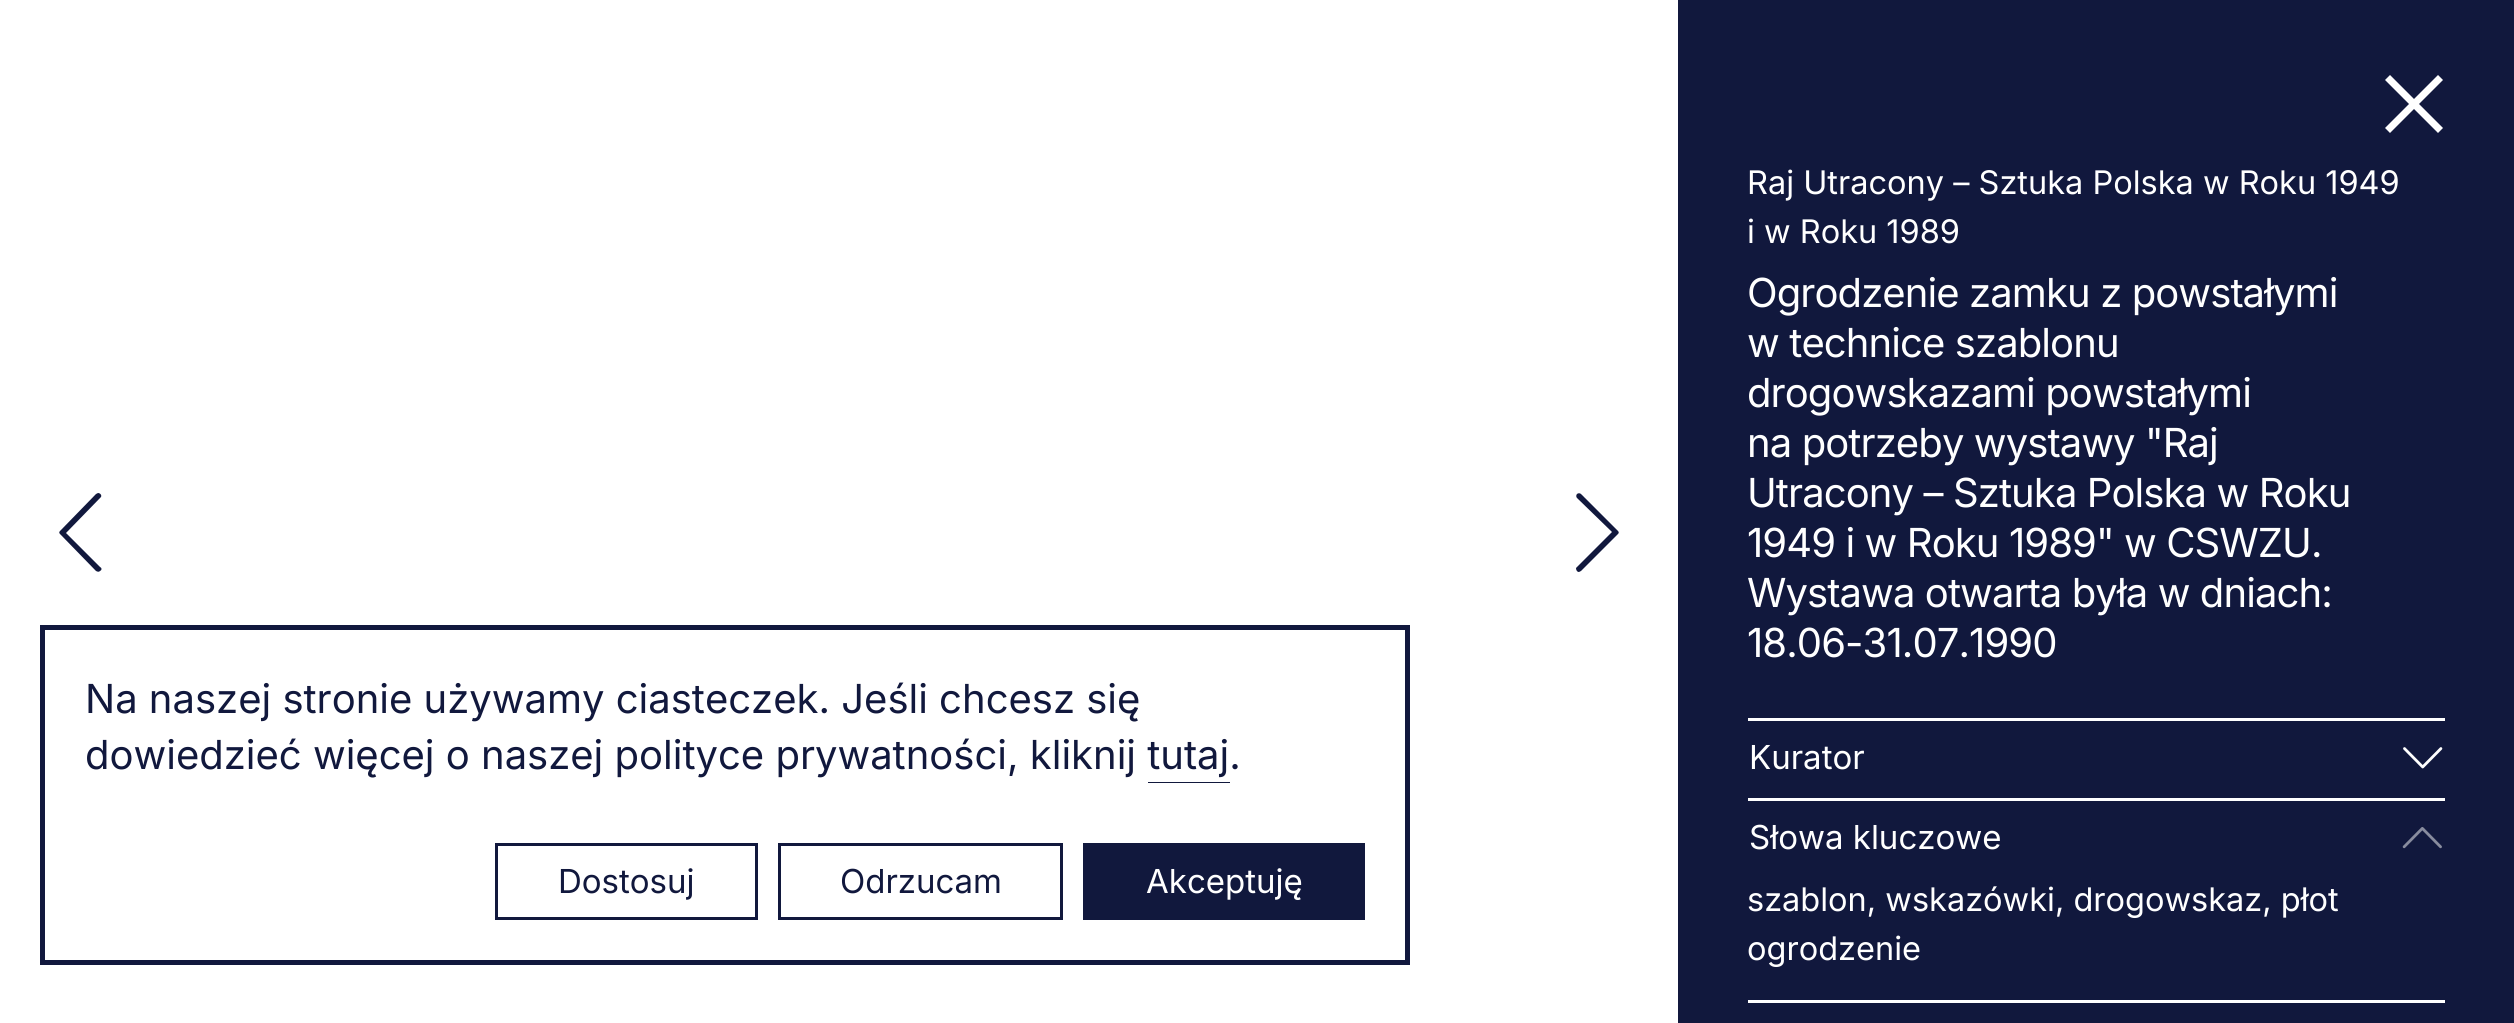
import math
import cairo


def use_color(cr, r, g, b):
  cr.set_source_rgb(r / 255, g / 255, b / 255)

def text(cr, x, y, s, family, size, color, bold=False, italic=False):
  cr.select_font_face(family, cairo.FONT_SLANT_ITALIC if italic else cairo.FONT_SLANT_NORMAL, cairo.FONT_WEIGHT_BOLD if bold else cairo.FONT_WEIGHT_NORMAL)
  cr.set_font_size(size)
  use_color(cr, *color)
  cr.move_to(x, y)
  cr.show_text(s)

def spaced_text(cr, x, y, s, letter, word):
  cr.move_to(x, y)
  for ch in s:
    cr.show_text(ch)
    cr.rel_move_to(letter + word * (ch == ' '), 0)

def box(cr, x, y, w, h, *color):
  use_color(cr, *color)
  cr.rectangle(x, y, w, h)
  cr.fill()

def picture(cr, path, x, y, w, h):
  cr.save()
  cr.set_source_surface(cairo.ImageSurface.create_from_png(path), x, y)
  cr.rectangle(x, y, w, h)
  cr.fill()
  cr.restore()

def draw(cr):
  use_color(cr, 17, 24, 61)
  cr.paint()
  box(cr, 0, 0, 1678, 1023, 255, 255, 255)
  cr.rectangle(42.5, 627.5, 1365, 335)
  use_color(cr, 17, 24, 61)
  cr.set_line_width(5)
  cr.stroke()
  cr.save()
  cr.rectangle(1148, 730, 82, 53)
  cr.clip()
  cr.set_fill_rule(cairo.FILL_RULE_EVEN_ODD)
  cr.new_path()
  cr.move_to(900, 482)
  cr.line_to(1478, 482)
  cr.line_to(1478, 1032)
  cr.line_to(900, 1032)
  cr.close_path()
  cr.move_to(1148, 722)
  cr.line_to(1230, 722)
  cr.curve_to(1231, 722, 1232, 724, 1232, 725)
  cr.line_to(1232, 780)
  cr.curve_to(1232, 781, 1231, 782, 1230, 782)
  cr.line_to(1148, 782)
  cr.curve_to(1146, 782, 1145, 781, 1145, 780)
  cr.line_to(1145, 725)
  cr.curve_to(1145, 724, 1146, 722, 1148, 722)
  cr.close_path()
  cr.fill()
  cr.restore()
  cr.rectangle(496.5, 844.5, 260, 74)
  cr.set_line_width(3)
  cr.stroke()
  cr.rectangle(779.5, 844.5, 282, 74)
  cr.stroke()
  box(cr, 1083, 843, 282, 77, 17, 24, 61)
  cr.new_path()
  cr.move_to(98, 493)
  cr.curve_to(100, 493, 102, 495, 101, 497)
  cr.line_to(66, 533)
  cr.line_to(100, 567)
  cr.curve_to(102, 568, 102, 570, 100, 571)
  cr.curve_to(99, 572, 98, 572, 96, 571)
  cr.line_to(60, 534)
  cr.curve_to(59, 533, 59, 532, 60, 531)
  cr.line_to(96, 494)
  cr.close_path()
  cr.fill()
  cr.new_path()
  cr.move_to(1579, 572)
  cr.curve_to(1577, 572, 1576, 570, 1576, 568)
  cr.line_to(1612, 532)
  cr.line_to(1577, 498)
  cr.curve_to(1576, 497, 1576, 495, 1577, 494)
  cr.curve_to(1578, 493, 1580, 493, 1581, 494)
  cr.line_to(1618, 531)
  cr.curve_to(1619, 532, 1619, 533, 1618, 534)
  cr.line_to(1581, 571)
  cr.close_path()
  cr.fill()
  use_color(cr, 255, 255, 255)
  cr.new_path()
  cr.move_to(2390, 75)
  cr.line_to(2414, 99)
  cr.line_to(2438, 75)
  cr.line_to(2443, 80)
  cr.line_to(2419, 104)
  cr.line_to(2443, 128)
  cr.line_to(2438, 133)
  cr.line_to(2414, 109)
  cr.line_to(2390, 133)
  cr.line_to(2385, 128)
  cr.line_to(2409, 104)
  cr.line_to(2385, 80)
  cr.close_path()
  cr.fill()
  box(cr, 1748, 718, 697, 3, 255, 255, 255)
  picture(cr, "img_01.png", 2403, 747, 40, 22)
  box(cr, 1748, 798, 697, 3, 255, 255, 255)
  picture(cr, "img_02.png", 2402, 827, 40, 22)
  box(cr, 1748, 1000, 697, 3, 255, 255, 255)
  text(cr, 85, 713, "Na naszej stronie używamy ciasteczek. Jeśli chcesz się", "Inter", 40, (17, 24, 61))
  text(cr, 85, 769, "dowiedzieć więcej o naszej polityce prywatności, kliknij tutaj.", "Inter", 40, (17, 24, 61))
  text(cr, 558, 893, "Dostosuj", "Inter", 33, (17, 24, 61))
  text(cr, 840, 893, "Odrzucam", "Inter", 33, (17, 24, 61))
  text(cr, 1146, 893, "Akceptuję", "Inter", 33, (255, 255, 255))
  text(cr, 1747, 194, "Raj Utracony – Sztuka Polska w Roku 1949", "Inter", 32.5, (255, 255, 255))
  text(cr, 1747, 243, "i w Roku 1989", "Inter", 32.5, (255, 255, 255))
  cr.set_font_size(40)
  spaced_text(cr, 1747, 307, "Ogrodzenie zamku z powstałymi", -0.9, 0)
  spaced_text(cr, 1747, 357, "w technice szablonu", -0.9, 0)
  spaced_text(cr, 1747, 407, "drogowskazami powstałymi", -0.9, 0)
  spaced_text(cr, 1747, 457, "na potrzeby wystawy \"Raj", -0.9, 0)
  spaced_text(cr, 1747, 507, "Utracony – Sztuka Polska w Roku", -0.9, 0)
  spaced_text(cr, 1747, 557, "1949 i w Roku 1989\" w CSWZU.", -0.9, 0)
  spaced_text(cr, 1747, 607, "Wystawa otwarta była w dniach:", -0.9, 0)
  spaced_text(cr, 1747, 657, "18.06-31.07.1990", -0.9, 0)
  text(cr, 1749, 769, "Kurator", "Inter", 33, (255, 255, 255))
  text(cr, 1749, 849, "Słowa kluczowe", "Inter", 33, (255, 255, 255))
  text(cr, 1747, 911, "szablon, wskazówki, drogowskaz, płot", "Inter", 32.5, (255, 255, 255))
  text(cr, 1747, 960, "ogrodzenie", "Inter", 32.5, (255, 255, 255))


surface = cairo.ImageSurface(cairo.FORMAT_RGB24, 2514, 1023)
cr = cairo.Context(surface)
options = cairo.FontOptions()
options.set_hint_metrics(cairo.HINT_METRICS_OFF)
options.set_hint_style(cairo.HINT_STYLE_NONE)
cr.set_font_options(options)
cr.set_miter_limit(4)
draw(cr)
surface.write_to_png("out.png")
